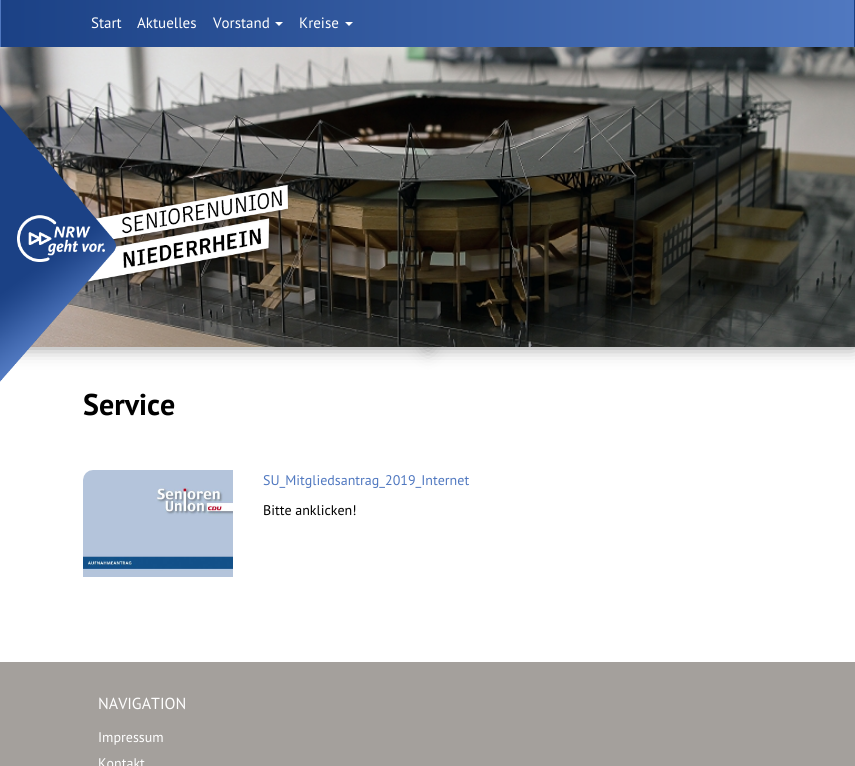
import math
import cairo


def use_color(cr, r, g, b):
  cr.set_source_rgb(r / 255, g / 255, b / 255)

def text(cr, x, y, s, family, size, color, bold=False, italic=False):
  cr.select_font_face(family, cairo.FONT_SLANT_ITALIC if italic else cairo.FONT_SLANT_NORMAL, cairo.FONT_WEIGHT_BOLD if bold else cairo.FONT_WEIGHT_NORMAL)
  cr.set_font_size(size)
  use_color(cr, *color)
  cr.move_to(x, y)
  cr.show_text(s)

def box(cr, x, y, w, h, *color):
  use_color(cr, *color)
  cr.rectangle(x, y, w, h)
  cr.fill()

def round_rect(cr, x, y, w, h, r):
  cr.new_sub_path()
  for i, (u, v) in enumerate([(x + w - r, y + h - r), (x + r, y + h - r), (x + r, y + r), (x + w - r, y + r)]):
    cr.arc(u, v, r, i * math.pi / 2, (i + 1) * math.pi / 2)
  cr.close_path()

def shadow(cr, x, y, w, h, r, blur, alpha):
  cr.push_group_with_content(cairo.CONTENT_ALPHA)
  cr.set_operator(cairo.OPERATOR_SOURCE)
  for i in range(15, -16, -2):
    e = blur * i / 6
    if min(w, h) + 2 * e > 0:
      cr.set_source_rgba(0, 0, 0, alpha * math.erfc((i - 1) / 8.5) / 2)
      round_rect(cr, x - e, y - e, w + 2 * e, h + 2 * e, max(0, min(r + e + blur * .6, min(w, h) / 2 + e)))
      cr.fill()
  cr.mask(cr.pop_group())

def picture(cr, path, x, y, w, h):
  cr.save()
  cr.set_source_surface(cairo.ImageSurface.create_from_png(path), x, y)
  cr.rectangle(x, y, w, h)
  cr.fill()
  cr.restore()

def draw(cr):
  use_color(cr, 255, 255, 255)
  cr.paint()
  gradient = cairo.LinearGradient(-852, 23, 1, 23)
  gradient.add_color_stop_rgba(0, 0.106, 0.255, 0.522, 1)
  gradient.add_color_stop_rgba(1, 0.314, 0.471, 0.753, 1)
  cr.set_source(gradient)
  cr.rectangle(0, 0, 1, 47)
  cr.fill()
  gradient = cairo.LinearGradient(1, 23, 854, 23)
  gradient.add_color_stop_rgba(0, 0.106, 0.255, 0.522, 1)
  gradient.add_color_stop_rgba(1, 0.314, 0.471, 0.753, 1)
  cr.set_source(gradient)
  cr.rectangle(1, 0, 853, 47)
  cr.fill()
  gradient = cairo.LinearGradient(854, 23, 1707, 23)
  gradient.add_color_stop_rgba(0, 0.106, 0.255, 0.522, 1)
  gradient.add_color_stop_rgba(1, 0.314, 0.471, 0.753, 1)
  cr.set_source(gradient)
  cr.rectangle(854, 0, 1, 47)
  cr.fill()
  use_color(cr, 255, 255, 255)
  cr.new_path()
  cr.move_to(275, 22)
  cr.line_to(283, 22)
  cr.line_to(279, 26)
  cr.close_path()
  cr.fill()
  cr.new_path()
  cr.move_to(345, 22)
  cr.line_to(353, 22)
  cr.line_to(349, 26)
  cr.close_path()
  cr.fill()
  use_color(cr, 119, 119, 119)
  shadow(cr, 0, 307, 428, 38, 0, 10, 1)
  shadow(cr, 428, 307, 427, 38, 0, 10, 1)
  picture(cr, "img_01.png", 0, 47, 855, 300)
  picture(cr, "img_02.png", 0, 105, 289, 277)
  picture(cr, "img_03.png", 83, 470, 150, 107)
  box(cr, 0, 662, 855, 104, 164, 160, 156)
  text(cr, 91, 28, "Start", "PT Sans", 15, (255, 255, 255))
  text(cr, 137, 28, "Aktuelles", "PT Sans", 15, (255, 255, 255))
  text(cr, 213, 28, "Vorstand", "PT Sans", 15, (255, 255, 255))
  text(cr, 299, 28, "Kreise", "PT Sans", 15, (255, 255, 255))
  text(cr, 83, 415, "Service", "PT Sans", 30, (0, 0, 0), bold=True)
  text(cr, 263, 485, "SU_Mitgliedsantrag_2019_Internet", "PT Sans", 14, (80, 120, 192))
  text(cr, 263, 515, "Bitte anklicken!", "PT Sans", 14, (0, 0, 0))
  text(cr, 98, 709, "NAVIGATION", "PT Sans", 16, (255, 255, 255))
  text(cr, 98, 742, "Impressum", "PT Sans", 14, (255, 255, 255))
  text(cr, 98, 768, "Kontakt", "PT Sans", 14, (255, 255, 255))


surface = cairo.ImageSurface(cairo.FORMAT_RGB24, 855, 766)
cr = cairo.Context(surface)
options = cairo.FontOptions()
options.set_hint_metrics(cairo.HINT_METRICS_OFF)
options.set_hint_style(cairo.HINT_STYLE_NONE)
cr.set_font_options(options)
cr.set_miter_limit(4)
draw(cr)
surface.write_to_png("out.png")
